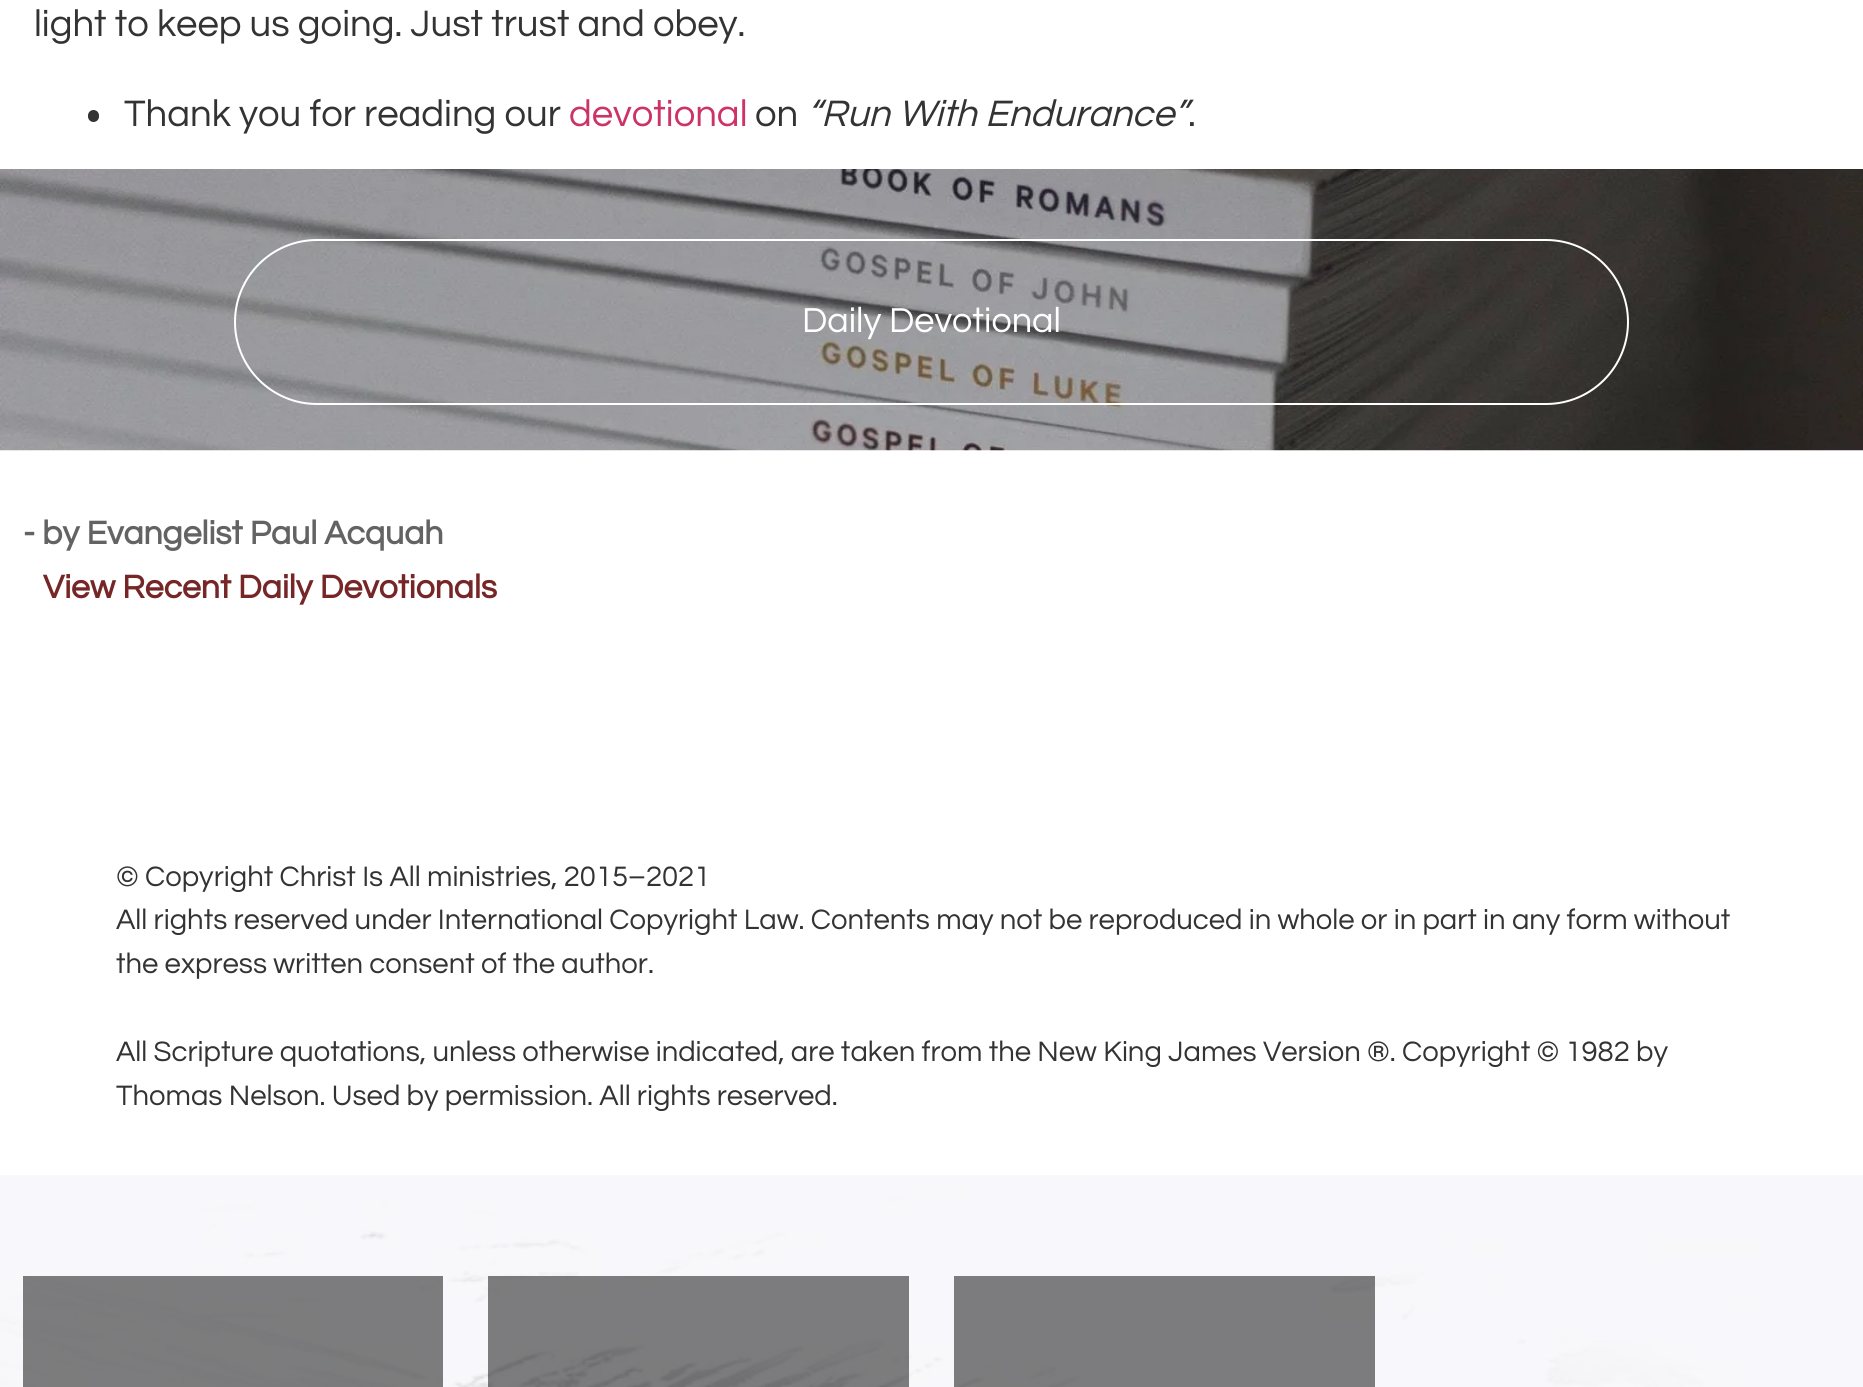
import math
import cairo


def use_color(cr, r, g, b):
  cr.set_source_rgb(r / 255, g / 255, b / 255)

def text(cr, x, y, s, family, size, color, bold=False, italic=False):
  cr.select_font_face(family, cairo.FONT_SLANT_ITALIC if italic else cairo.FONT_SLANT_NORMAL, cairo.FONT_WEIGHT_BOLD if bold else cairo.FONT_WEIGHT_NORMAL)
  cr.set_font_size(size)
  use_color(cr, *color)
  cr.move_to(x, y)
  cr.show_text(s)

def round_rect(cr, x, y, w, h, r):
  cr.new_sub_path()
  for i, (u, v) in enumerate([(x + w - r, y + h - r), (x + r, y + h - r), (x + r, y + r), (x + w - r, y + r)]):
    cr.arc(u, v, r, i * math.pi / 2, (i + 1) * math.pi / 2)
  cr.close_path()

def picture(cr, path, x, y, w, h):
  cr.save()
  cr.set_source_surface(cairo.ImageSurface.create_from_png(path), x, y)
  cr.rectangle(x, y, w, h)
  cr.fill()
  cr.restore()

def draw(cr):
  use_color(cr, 255, 255, 255)
  cr.paint()
  use_color(cr, 51, 51, 51)
  round_rect(cr, 88, 110, 11, 12, 5.5)
  cr.fill()
  picture(cr, "img_01.png", 0, 169, 1863, 282)
  round_rect(cr, 235, 240, 1393, 164, 82)
  use_color(cr, 255, 255, 255)
  cr.stroke()
  picture(cr, "img_02.png", 0, 1175, 1863, 212)
  cr.set_source_rgba(0, 0, 0, 0.5)
  cr.rectangle(23, 1276, 420, 111)
  cr.fill()
  cr.rectangle(488, 1276, 421, 111)
  cr.fill()
  cr.rectangle(954, 1276, 421, 111)
  cr.fill()
  text(cr, 34, 36, "light to keep us going. Just trust and obey.", "Questrial", 38.25, (51, 51, 51))
  text(cr, 124, 126, "Thank you for reading our", "Questrial", 38.25, (51, 51, 51))
  text(cr, 569, 126, "devotional", "Questrial", 38.25, (204, 51, 102))
  text(cr, 755, 126, "on", "Questrial", 38.25, (51, 51, 51))
  text(cr, 807, 126, "“Run With Endurance”", "Questrial", 38.25, (51, 51, 51), italic=True)
  text(cr, 1188, 126, ".", "Questrial", 38.25, (51, 51, 51))
  text(cr, 802, 332, "Daily Devotional", "Questrial", 36, (255, 255, 255))
  text(cr, 23, 544, "- by Evangelist Paul Acquah", "Questrial", 33.75, (99, 99, 99), bold=True)
  text(cr, 43, 598, "View Recent Daily Devotionals", "Questrial", 33.75, (118, 38, 38), bold=True)
  text(cr, 116, 886, "© Copyright Christ Is All ministries, 2015–2021", "Questrial", 29.25, (51, 51, 51))
  text(cr, 116, 929, "All rights reserved under International Copyright Law. Contents may not be reproduced in whole or in part in any form without", "Questrial", 29.25, (51, 51, 51))
  text(cr, 116, 973, "the express written consent of the author.", "Questrial", 29.25, (51, 51, 51))
  text(cr, 116, 1061, "All Scripture quotations, unless otherwise indicated, are taken from the New King James Version ®. Copyright © 1982 by", "Questrial", 29.25, (51, 51, 51))
  text(cr, 116, 1105, "Thomas Nelson. Used by permission. All rights reserved.", "Questrial", 29.25, (51, 51, 51))


surface = cairo.ImageSurface(cairo.FORMAT_RGB24, 1863, 1387)
cr = cairo.Context(surface)
options = cairo.FontOptions()
options.set_hint_metrics(cairo.HINT_METRICS_OFF)
options.set_hint_style(cairo.HINT_STYLE_NONE)
cr.set_font_options(options)
cr.set_miter_limit(4)
draw(cr)
surface.write_to_png("out.png")
